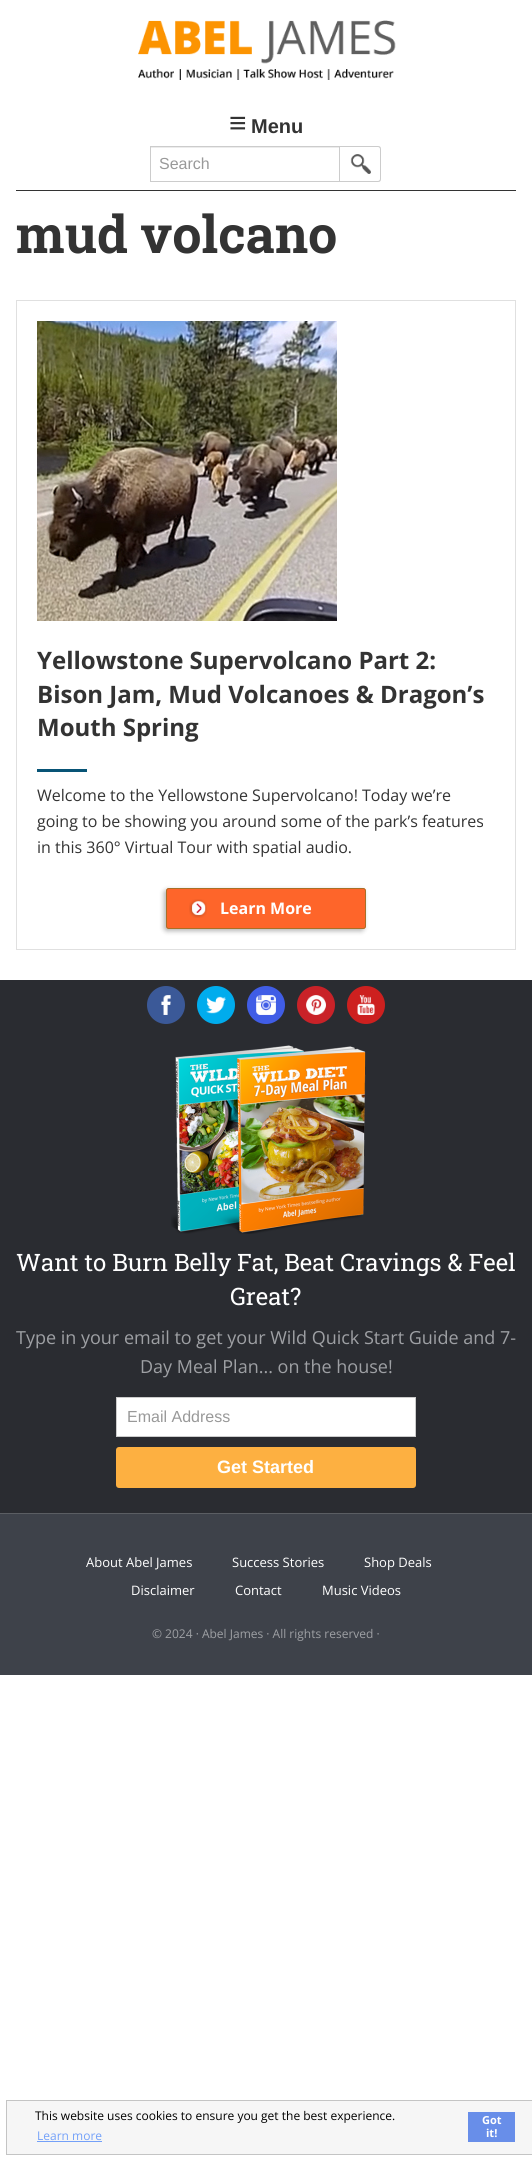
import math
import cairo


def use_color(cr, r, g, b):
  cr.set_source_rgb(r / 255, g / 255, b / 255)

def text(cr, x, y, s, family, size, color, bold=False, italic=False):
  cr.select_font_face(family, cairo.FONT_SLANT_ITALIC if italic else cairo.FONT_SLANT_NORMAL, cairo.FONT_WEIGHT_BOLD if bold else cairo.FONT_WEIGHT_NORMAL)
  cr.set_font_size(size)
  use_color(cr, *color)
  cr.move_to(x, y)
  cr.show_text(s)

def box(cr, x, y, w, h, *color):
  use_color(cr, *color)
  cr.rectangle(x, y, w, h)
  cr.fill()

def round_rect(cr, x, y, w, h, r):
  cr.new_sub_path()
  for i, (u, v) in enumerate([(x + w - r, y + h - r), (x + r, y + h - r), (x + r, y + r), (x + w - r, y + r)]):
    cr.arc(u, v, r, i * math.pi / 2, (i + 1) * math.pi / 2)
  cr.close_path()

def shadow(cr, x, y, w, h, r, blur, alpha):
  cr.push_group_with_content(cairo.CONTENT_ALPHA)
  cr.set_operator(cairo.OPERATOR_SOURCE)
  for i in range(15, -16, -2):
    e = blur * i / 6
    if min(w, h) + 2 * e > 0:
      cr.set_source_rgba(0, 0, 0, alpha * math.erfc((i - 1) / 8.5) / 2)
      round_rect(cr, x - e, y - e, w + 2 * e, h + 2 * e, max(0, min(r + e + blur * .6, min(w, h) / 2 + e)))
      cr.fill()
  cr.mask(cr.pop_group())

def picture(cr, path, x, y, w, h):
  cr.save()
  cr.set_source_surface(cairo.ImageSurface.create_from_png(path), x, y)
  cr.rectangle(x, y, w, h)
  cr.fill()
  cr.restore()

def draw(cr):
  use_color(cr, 255, 255, 255)
  cr.paint()
  box(cr, 16, 190, 500, 1, 51, 51, 51)
  picture(cr, "img_01.png", 138, 20, 258, 60)
  box(cr, 151, 147, 188, 1, 236, 236, 236)
  cr.rectangle(150.5, 146.5, 189, 35)
  use_color(cr, 204, 204, 204)
  cr.set_line_width(1)
  cr.stroke()
  picture(cr, "img_02.png", 350, 154, 21, 20)
  cr.set_fill_rule(cairo.FILL_RULE_EVEN_ODD)
  cr.new_path()
  cr.move_to(340, 146)
  cr.line_to(378, 146)
  cr.curve_to(380, 146, 381, 147, 381, 149)
  cr.line_to(381, 179)
  cr.curve_to(381, 181, 380, 182, 378, 182)
  cr.line_to(340, 182)
  cr.close_path()
  cr.move_to(340, 147)
  cr.line_to(378, 147)
  cr.curve_to(379, 147, 380, 148, 380, 149)
  cr.line_to(380, 179)
  cr.curve_to(380, 180, 379, 181, 378, 181)
  cr.line_to(340, 181)
  cr.close_path()
  cr.fill()
  cr.rectangle(16.5, 300.5, 499, 649)
  use_color(cr, 224, 224, 224)
  cr.stroke()
  picture(cr, "img_03.png", 37, 321, 300, 300)
  box(cr, 37, 769, 50, 3, 8, 84, 118)
  use_color(cr, 0, 0, 0)
  shadow(cr, 164, 890, 200, 41, 3, 2.5, 0.3)
  use_color(cr, 254, 101, 42)
  round_rect(cr, 166, 888, 200, 41, 3)
  cr.fill()
  picture(cr, "img_04.png", 189, 899, 18, 19)
  round_rect(cr, 166.5, 888.5, 199, 40, 2.5)
  use_color(cr, 169, 111, 39)
  cr.stroke()
  box(cr, 0, 980, 532, 533, 42, 44, 49)
  box(cr, 0, 1513, 532, 1, 91, 94, 99)
  use_color(cr, 59, 89, 152)
  cr.arc(166, 1005, 19, 0, 2 * math.pi)
  cr.fill()
  picture(cr, "img_05.png", 161, 995, 10, 20)
  use_color(cr, 0, 172, 237)
  cr.arc(216, 1005, 19, 0, 2 * math.pi)
  cr.fill()
  picture(cr, "img_06.png", 206, 996, 20, 18)
  use_color(cr, 64, 93, 230)
  cr.arc(266, 1005, 19, 0, 2 * math.pi)
  cr.fill()
  picture(cr, "img_07.png", 256, 995, 20, 20)
  use_color(cr, 201, 34, 40)
  cr.arc(316, 1005, 19, 0, 2 * math.pi)
  cr.fill()
  picture(cr, "img_08.png", 306, 995, 20, 20)
  use_color(cr, 205, 32, 31)
  cr.arc(366, 1005, 19, 0, 2 * math.pi)
  cr.fill()
  picture(cr, "img_09.png", 357, 995, 18, 20)
  picture(cr, "img_10.png", 171, 1045, 195, 189)
  use_color(cr, 255, 255, 255)
  cr.rectangle(116.5, 1397.5, 299, 39)
  cr.fill_preserve()
  use_color(cr, 204, 204, 204)
  cr.stroke()
  use_color(cr, 253, 176, 65)
  round_rect(cr, 116, 1447, 300, 41, 3)
  cr.fill()
  box(cr, 0, 1514, 532, 161, 62, 66, 74)
  use_color(cr, 246, 246, 246)
  cr.rectangle(6.5, 2100.5, 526, 54)
  cr.fill_preserve()
  use_color(cr, 196, 196, 196)
  cr.stroke()
  box(cr, 37, 2141, 65, 1, 116, 161, 249)
  box(cr, 468, 2112, 47, 30, 104, 142, 233)
  text(cr, 229, 133, "≡", "Liberation Sans", 30, (51, 51, 51), bold=True)
  text(cr, 251, 133, "Menu", "Liberation Sans", 20, (51, 51, 51), bold=True)
  text(cr, 159, 169, "Search", "Liberation Sans", 16, (153, 153, 153))
  text(cr, 16, 253, "mud volcano", "Roboto Slab", 52, (51, 51, 51), bold=True)
  text(cr, 37, 669, "Yellowstone Supervolcano Part 2:", "Open Sans", 24, (51, 51, 51), bold=True)
  text(cr, 37, 703, "Bison Jam, Mud Volcanoes & Dragon’s", "Open Sans", 24, (51, 51, 51), bold=True)
  text(cr, 37, 736, "Mouth Spring", "Open Sans", 24, (51, 51, 51), bold=True)
  text(cr, 37, 801, "Welcome to the Yellowstone Supervolcano! Today we’re", "Open Sans", 16, (51, 51, 51))
  text(cr, 37, 827, "going to be showing you around some of the park’s features", "Open Sans", 16, (51, 51, 51))
  text(cr, 37, 853, "in this 360° Virtual Tour with spatial audio.", "Open Sans", 16, (51, 51, 51))
  text(cr, 220, 914, "Learn More", "Open Sans", 16, (255, 255, 255), bold=True)
  text(cr, 16, 1271, "Want to Burn Belly Fat, Beat Cravings & Feel", "Roboto Slab", 24, (255, 255, 255))
  text(cr, 230, 1305, "Great?", "Roboto Slab", 24, (255, 255, 255))
  text(cr, 16, 1344, "Type in your email to get your Wild Quick Start Guide and 7-", "Open Sans", 18, (158, 160, 164))
  text(cr, 140, 1373, "Day Meal Plan... on the house!", "Open Sans", 18, (158, 160, 164))
  text(cr, 127, 1422, "Email Address", "Liberation Sans", 16, (153, 153, 153))
  text(cr, 217, 1473, "Get Started", "Liberation Sans", 18, (255, 255, 255), bold=True)
  text(cr, 86, 1567, "About Abel James", "Open Sans", 13, (255, 255, 255))
  text(cr, 232, 1567, "Success Stories", "Open Sans", 13, (255, 255, 255))
  text(cr, 364, 1567, "Shop Deals", "Open Sans", 13, (255, 255, 255))
  text(cr, 131, 1595, "Disclaimer", "Open Sans", 13, (255, 255, 255))
  text(cr, 235, 1595, "Contact", "Open Sans", 13, (255, 255, 255))
  text(cr, 322, 1595, "Music Videos", "Open Sans", 13, (255, 255, 255))
  text(cr, 152, 1638, "© 2024 · Abel James · All rights reserved ·", "Open Sans", 12, (158, 160, 164))
  text(cr, 35, 2120, "This website uses cookies to ensure you get the best experience.", "Open Sans", 12, (0, 0, 0))
  text(cr, 37, 2140, "Learn more", "Open Sans", 12, (116, 161, 249))
  text(cr, 482, 2124, "Got", "Open Sans", 11, (255, 255, 255), bold=True)
  text(cr, 486, 2137, "it!", "Open Sans", 11, (255, 255, 255), bold=True)


surface = cairo.ImageSurface(cairo.FORMAT_RGB24, 532, 2157)
cr = cairo.Context(surface)
options = cairo.FontOptions()
options.set_hint_metrics(cairo.HINT_METRICS_OFF)
options.set_hint_style(cairo.HINT_STYLE_NONE)
cr.set_font_options(options)
cr.set_miter_limit(4)
draw(cr)
surface.write_to_png("out.png")
